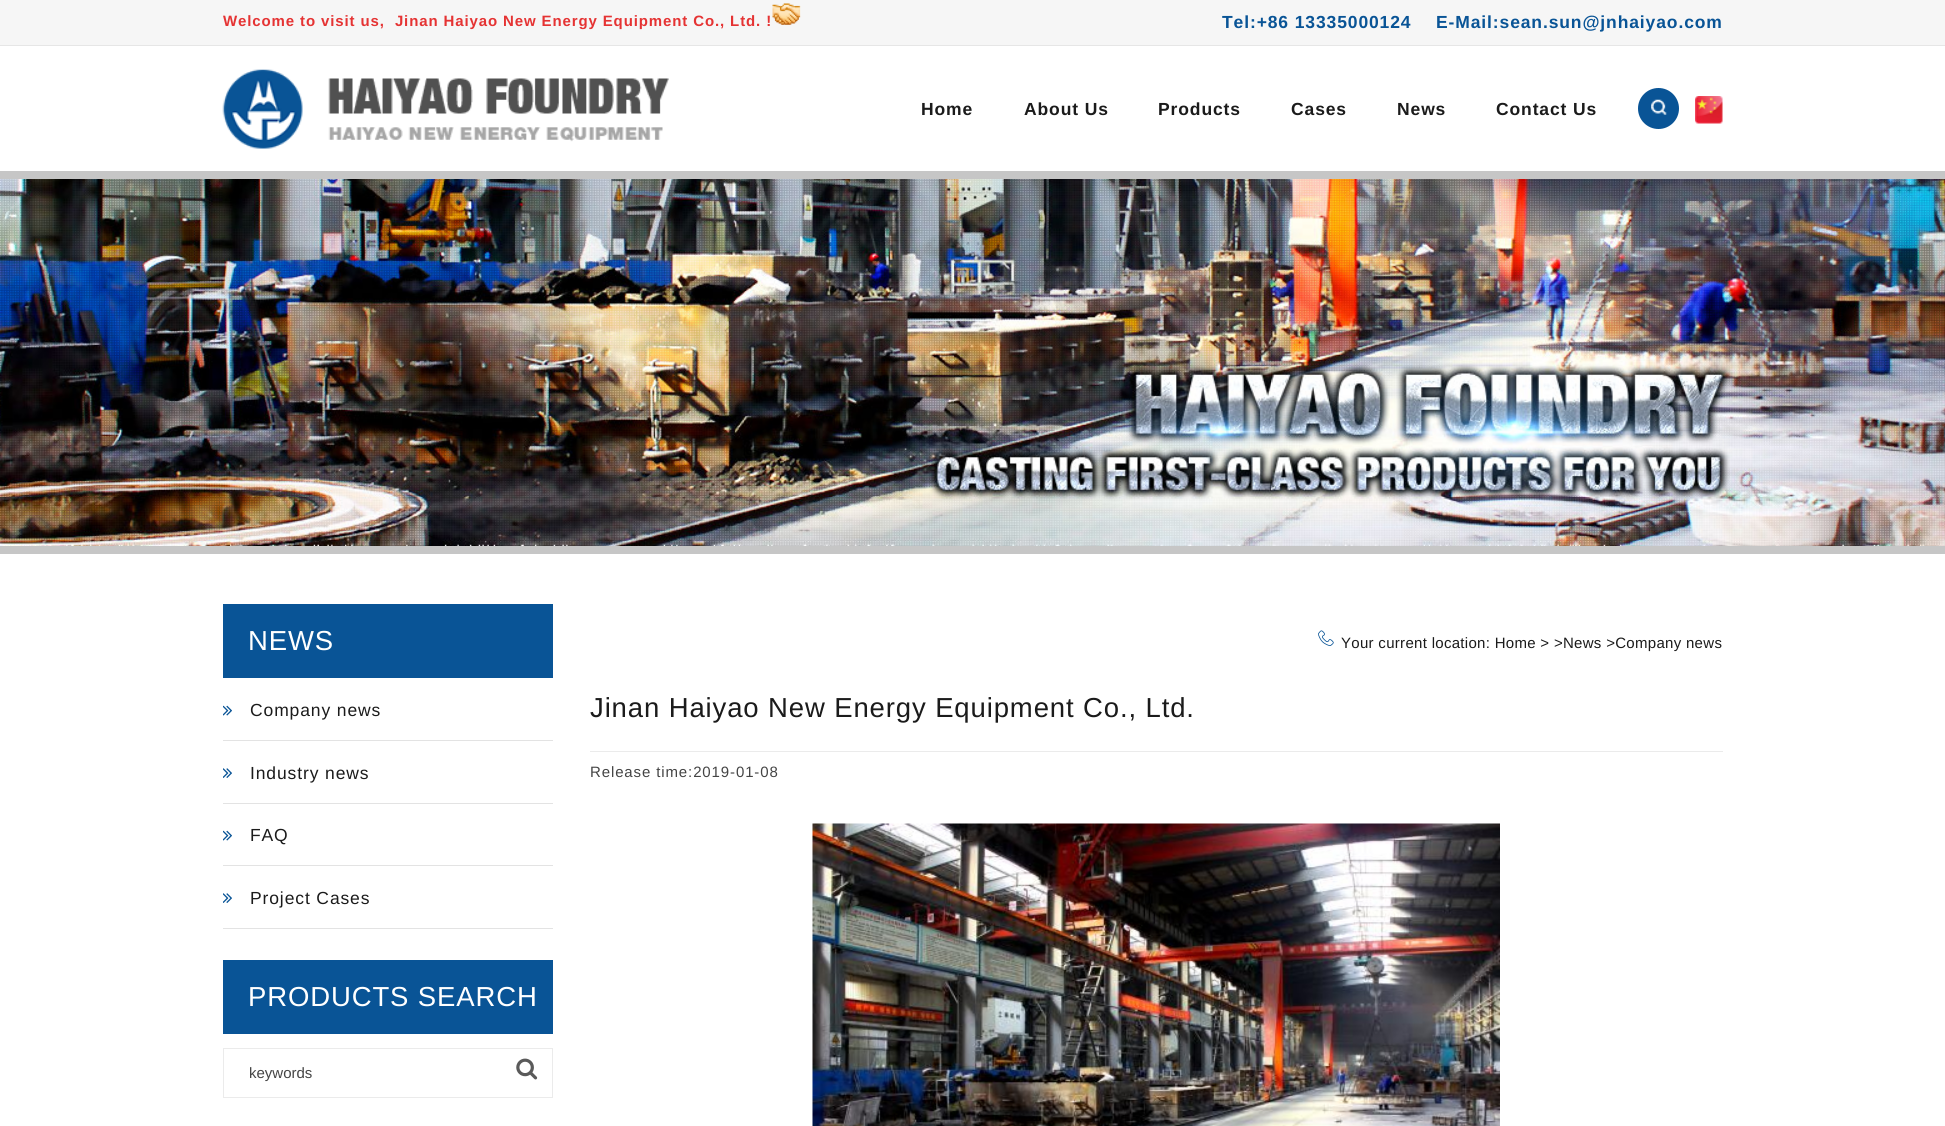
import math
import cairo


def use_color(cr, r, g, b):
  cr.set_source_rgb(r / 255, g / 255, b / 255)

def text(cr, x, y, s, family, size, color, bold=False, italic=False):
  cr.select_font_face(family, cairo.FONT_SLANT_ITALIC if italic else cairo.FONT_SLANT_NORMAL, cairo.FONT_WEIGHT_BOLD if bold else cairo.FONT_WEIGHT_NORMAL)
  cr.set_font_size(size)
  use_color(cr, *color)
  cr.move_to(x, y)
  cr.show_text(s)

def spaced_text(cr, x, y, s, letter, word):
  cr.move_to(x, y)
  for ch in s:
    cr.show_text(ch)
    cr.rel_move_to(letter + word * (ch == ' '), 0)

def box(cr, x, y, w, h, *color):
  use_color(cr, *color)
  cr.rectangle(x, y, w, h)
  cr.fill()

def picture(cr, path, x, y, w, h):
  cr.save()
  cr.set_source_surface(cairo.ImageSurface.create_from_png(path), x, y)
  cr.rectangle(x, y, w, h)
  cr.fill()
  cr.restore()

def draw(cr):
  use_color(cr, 255, 255, 255)
  cr.paint()
  box(cr, 0, 171, 1945, 8, 198, 198, 198)
  box(cr, 0, 0, 1945, 45, 246, 246, 246)
  box(cr, 0, 45, 1945, 1, 230, 230, 230)
  picture(cr, "img_01.png", 772, 3, 29, 22)
  picture(cr, "img_02.png", 222, 69, 447, 80)
  use_color(cr, 9, 84, 150)
  cr.arc(1658.5, 108.5, 20.5, 0, 2 * math.pi)
  cr.fill()
  picture(cr, "img_03.png", 1651, 99, 16, 16)
  picture(cr, "img_04.png", 1695, 96, 28, 28)
  box(cr, 0, 546, 1945, 8, 198, 198, 198)
  picture(cr, "img_05.png", 0, 179, 1945, 367)
  box(cr, 223, 604, 330, 74, 9, 84, 150)
  box(cr, 223, 740, 330, 1, 227, 227, 227)
  picture(cr, "img_06.png", 223, 705, 9, 11)
  box(cr, 223, 803, 330, 1, 227, 227, 227)
  picture(cr, "img_07.png", 223, 768, 9, 10)
  box(cr, 223, 865, 330, 1, 227, 227, 227)
  picture(cr, "img_06.png", 223, 830, 9, 11)
  box(cr, 223, 928, 330, 1, 227, 227, 227)
  picture(cr, "img_07.png", 223, 893, 9, 10)
  box(cr, 223, 960, 330, 74, 9, 84, 150)
  cr.rectangle(223.5, 1048.5, 329, 49)
  use_color(cr, 235, 235, 235)
  cr.set_line_width(1)
  cr.stroke()
  picture(cr, "img_08.png", 516, 1058, 22, 22)
  picture(cr, "img_09.png", 1318, 630, 16, 16)
  box(cr, 590, 751, 1133, 1, 235, 235, 235)
  picture(cr, "img_10.png", 812, 823, 688, 303)
  cr.select_font_face("Liberation Sans", cairo.FONT_SLANT_NORMAL, cairo.FONT_WEIGHT_BOLD)
  cr.set_font_size(15)
  use_color(cr, 229, 51, 51)
  spaced_text(cr, 223, 26, "Welcome to visit us,  Jinan Haiyao New Energy Equipment Co., Ltd. !", 0.88, 0)
  cr.set_font_size(17.5)
  use_color(cr, 9, 84, 150)
  spaced_text(cr, 1222, 28, "Tel:+86 13335000124", 0.88, 0)
  spaced_text(cr, 1436, 28, "E-Mail:sean.sun@jnhaiyao.com", 0.88, 0)
  use_color(cr, 27, 27, 27)
  spaced_text(cr, 921, 115, "Home", 0.88, 0)
  spaced_text(cr, 1024, 115, "About Us", 0.88, 0)
  spaced_text(cr, 1158, 115, "Products", 0.88, 0)
  spaced_text(cr, 1291, 115, "Cases", 0.88, 0)
  spaced_text(cr, 1397, 115, "News", 0.88, 0)
  spaced_text(cr, 1496, 115, "Contact Us", 0.88, 0)
  cr.select_font_face("Liberation Sans")
  cr.set_font_size(27.5)
  use_color(cr, 255, 255, 255)
  spaced_text(cr, 248, 650, "NEWS", 0.88, 0)
  cr.set_font_size(17.5)
  use_color(cr, 27, 27, 27)
  spaced_text(cr, 250, 716, "Company news", 0.88, 0)
  spaced_text(cr, 250, 779, "Industry news", 0.88, 0)
  spaced_text(cr, 250, 841, "FAQ", 0.88, 0)
  spaced_text(cr, 250, 904, "Project Cases", 0.88, 0)
  cr.set_font_size(27.5)
  use_color(cr, 255, 255, 255)
  spaced_text(cr, 248, 1006, "PRODUCTS SEARCH", 0.88, 0)
  text(cr, 249, 1078, "keywords", "Liberation Sans", 15, (68, 68, 68))
  use_color(cr, 27, 27, 27)
  spaced_text(cr, 1341, 648, "Your current location: Home > >News >Company news", 0.3, 0)
  cr.set_font_size(27.5)
  spaced_text(cr, 590, 717, "Jinan Haiyao New Energy Equipment Co., Ltd.", 0.88, 0)
  cr.set_font_size(15)
  use_color(cr, 68, 68, 68)
  spaced_text(cr, 590, 777, "Release time:2019-01-08", 0.88, 0)


surface = cairo.ImageSurface(cairo.FORMAT_RGB24, 1945, 1126)
cr = cairo.Context(surface)
options = cairo.FontOptions()
options.set_hint_metrics(cairo.HINT_METRICS_OFF)
options.set_hint_style(cairo.HINT_STYLE_NONE)
cr.set_font_options(options)
cr.set_miter_limit(4)
draw(cr)
surface.write_to_png("out.png")
